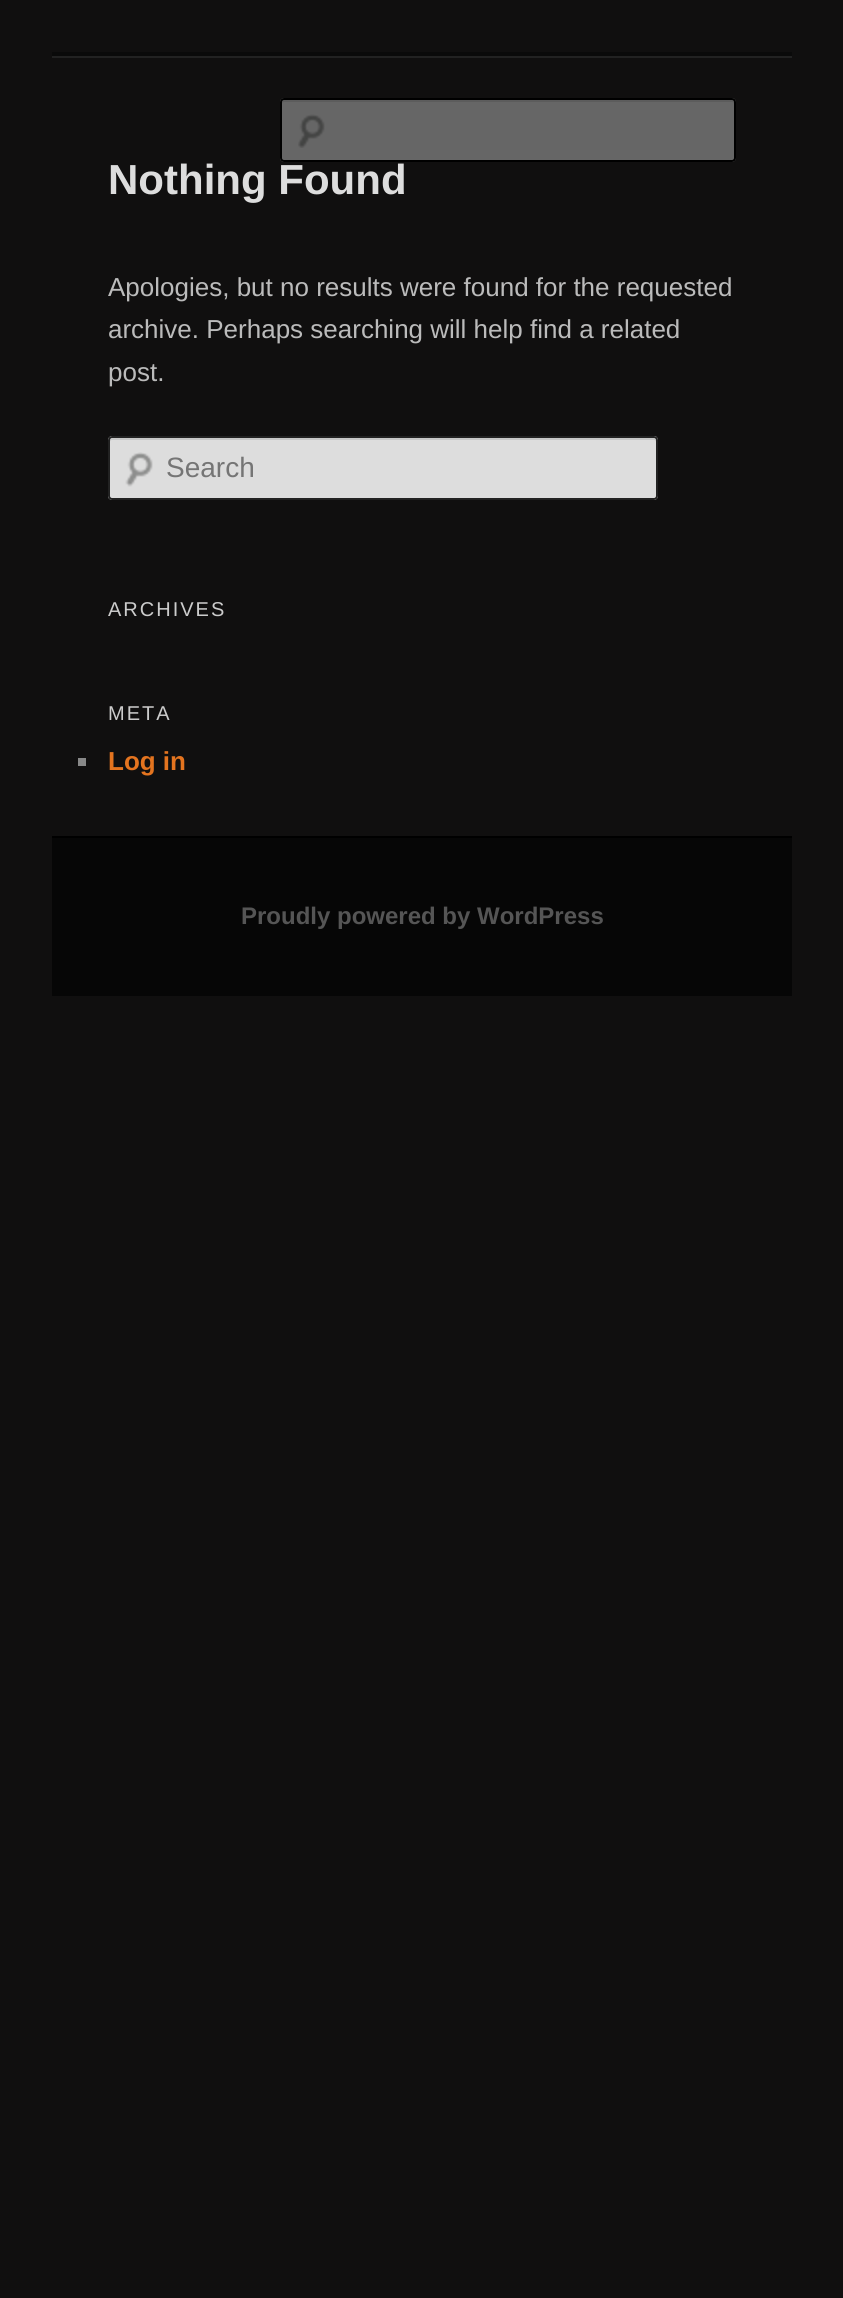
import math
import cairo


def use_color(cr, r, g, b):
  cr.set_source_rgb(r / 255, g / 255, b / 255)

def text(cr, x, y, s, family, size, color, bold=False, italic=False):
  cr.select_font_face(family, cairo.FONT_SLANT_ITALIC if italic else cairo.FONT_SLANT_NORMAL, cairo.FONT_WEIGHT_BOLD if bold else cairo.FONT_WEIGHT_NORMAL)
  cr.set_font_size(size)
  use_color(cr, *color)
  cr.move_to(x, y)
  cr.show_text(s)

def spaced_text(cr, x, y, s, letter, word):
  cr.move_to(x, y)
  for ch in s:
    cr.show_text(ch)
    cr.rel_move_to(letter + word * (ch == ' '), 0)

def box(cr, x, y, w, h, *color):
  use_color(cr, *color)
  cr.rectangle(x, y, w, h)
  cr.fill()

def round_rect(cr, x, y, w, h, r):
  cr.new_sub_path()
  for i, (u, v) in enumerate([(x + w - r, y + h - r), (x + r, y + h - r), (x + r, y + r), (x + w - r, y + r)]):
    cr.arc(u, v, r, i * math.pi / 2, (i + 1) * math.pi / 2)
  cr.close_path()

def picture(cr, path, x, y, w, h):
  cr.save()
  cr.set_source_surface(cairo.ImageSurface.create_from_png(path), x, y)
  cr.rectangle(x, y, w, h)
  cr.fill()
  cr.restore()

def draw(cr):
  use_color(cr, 16, 15, 15)
  cr.paint()
  box(cr, 52, 52, 740, 4, 10, 10, 10)
  box(cr, 52, 56, 740, 2, 34, 34, 34)
  use_color(cr, 102, 102, 102)
  round_rect(cr, 280, 98, 456, 64, 4)
  cr.fill()
  picture(cr, "img_01.png", 298, 114, 27, 34)
  use_color(cr, 92, 92, 92)
  cr.new_path()
  cr.move_to(284, 102)
  cr.line_to(732, 102)
  cr.curve_to(733, 102, 734, 103, 734, 104)
  cr.line_to(734, 101)
  cr.line_to(733, 100)
  cr.line_to(284, 100)
  cr.curve_to(282, 100, 282, 102, 282, 104)
  cr.curve_to(282, 103, 283, 102, 284, 102)
  cr.close_path()
  cr.fill()
  round_rect(cr, 281, 99, 454, 62, 3)
  use_color(cr, 0, 0, 0)
  cr.stroke()
  use_color(cr, 221, 221, 221)
  round_rect(cr, 108, 436, 550, 64, 4)
  cr.fill()
  picture(cr, "img_02.png", 125, 452, 28, 35)
  use_color(cr, 199, 199, 199)
  cr.new_path()
  cr.move_to(112, 440)
  cr.line_to(654, 440)
  cr.curve_to(655, 440, 656, 441, 656, 442)
  cr.curve_to(656, 440, 656, 438, 654, 438)
  cr.line_to(112, 438)
  cr.line_to(110, 439)
  cr.line_to(110, 442)
  cr.curve_to(110, 441, 111, 440, 112, 440)
  cr.close_path()
  cr.fill()
  round_rect(cr, 109, 437, 548, 62, 3)
  use_color(cr, 34, 34, 34)
  cr.stroke()
  box(cr, 78, 758, 8, 8, 136, 136, 136)
  box(cr, 52, 838, 740, 158, 6, 6, 6)
  box(cr, 52, 836, 740, 2, 0, 0, 0)
  text(cr, 108, 194, "Nothing Found", "Liberation Sans", 42, (221, 221, 221), bold=True)
  text(cr, 108, 296, "Apologies, but no results were found for the requested", "Liberation Sans", 26, (187, 187, 187))
  text(cr, 108, 338, "archive. Perhaps searching will help find a related", "Liberation Sans", 26, (187, 187, 187))
  text(cr, 108, 381, "post.", "Liberation Sans", 26, (187, 187, 187))
  text(cr, 166, 477, "Search", "Liberation Sans", 28, (117, 117, 117))
  cr.set_font_size(20)
  use_color(cr, 204, 204, 204)
  spaced_text(cr, 108, 616, "ARCHIVES", 2, 0)
  spaced_text(cr, 108, 720, "META", 2, 0)
  text(cr, 108, 770, "Log in", "Liberation Sans", 26, (228, 116, 31), bold=True)
  text(cr, 241, 924, "Proudly powered by WordPress", "Liberation Sans", 24, (85, 85, 85), bold=True)


surface = cairo.ImageSurface(cairo.FORMAT_RGB24, 843, 2298)
cr = cairo.Context(surface)
options = cairo.FontOptions()
options.set_hint_metrics(cairo.HINT_METRICS_OFF)
options.set_hint_style(cairo.HINT_STYLE_NONE)
cr.set_font_options(options)
cr.set_miter_limit(4)
draw(cr)
surface.write_to_png("out.png")
